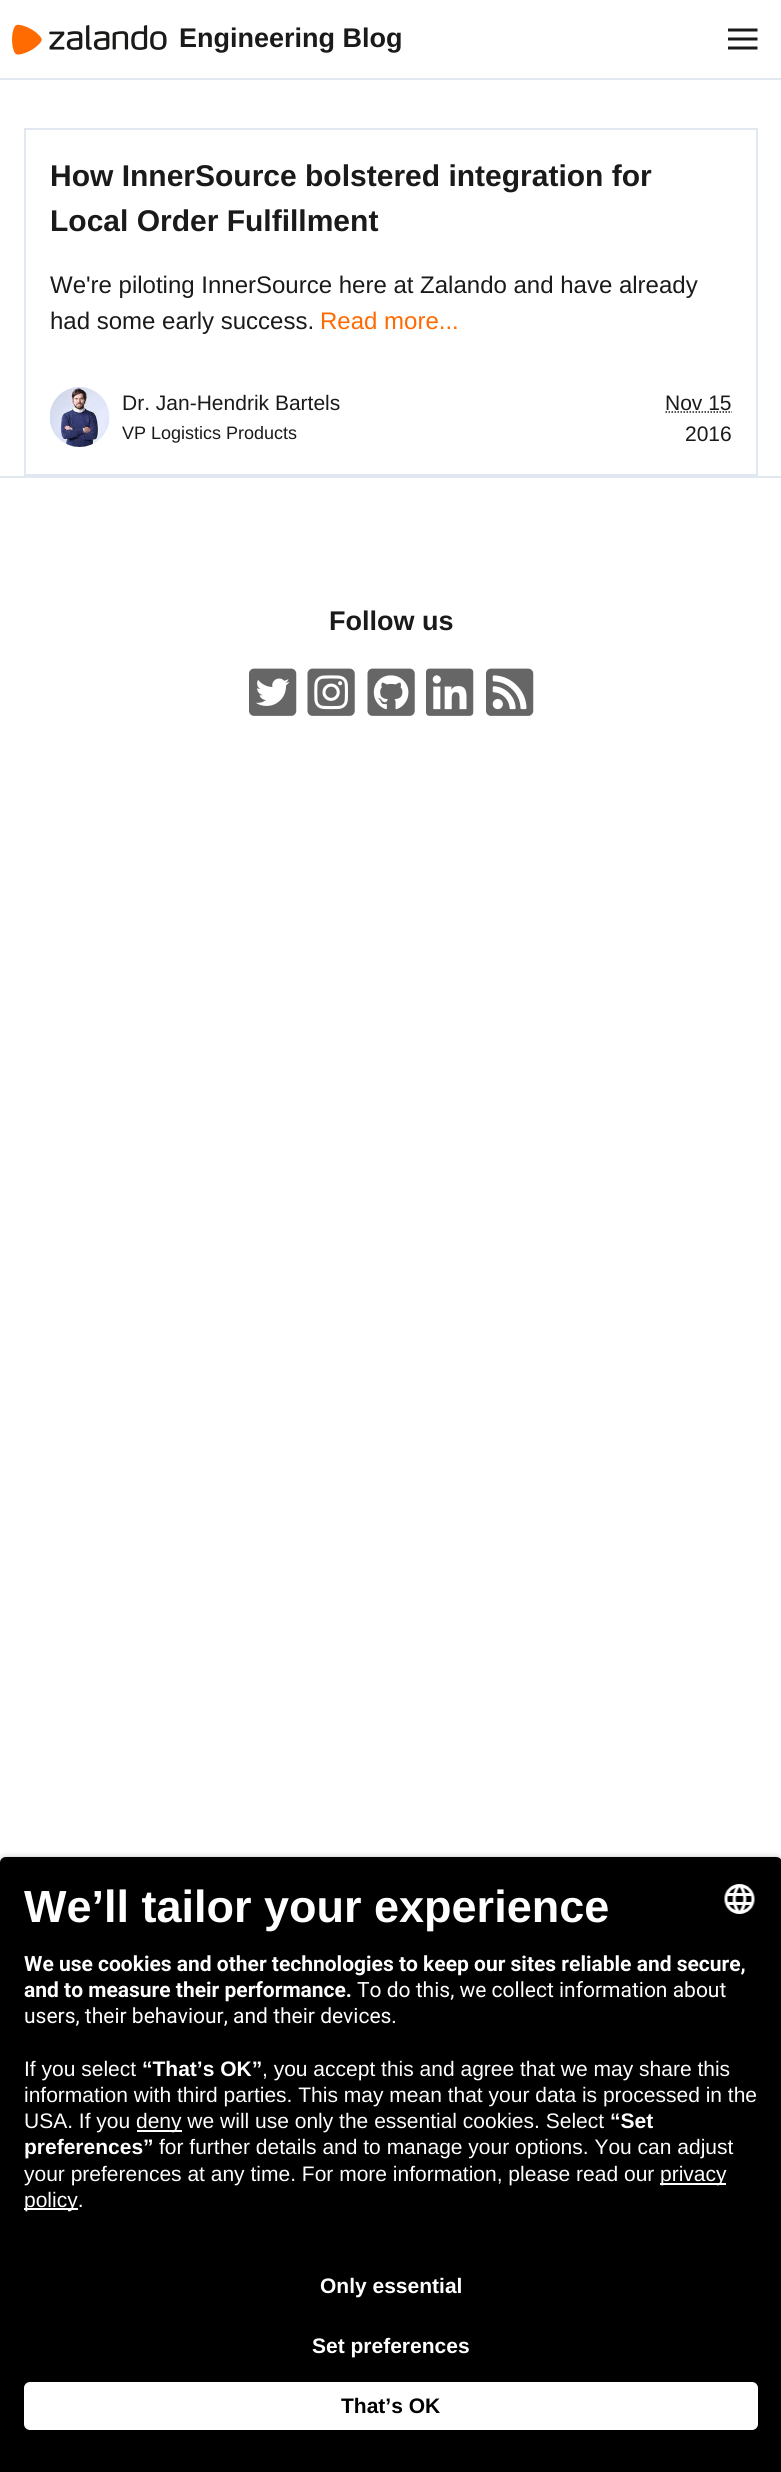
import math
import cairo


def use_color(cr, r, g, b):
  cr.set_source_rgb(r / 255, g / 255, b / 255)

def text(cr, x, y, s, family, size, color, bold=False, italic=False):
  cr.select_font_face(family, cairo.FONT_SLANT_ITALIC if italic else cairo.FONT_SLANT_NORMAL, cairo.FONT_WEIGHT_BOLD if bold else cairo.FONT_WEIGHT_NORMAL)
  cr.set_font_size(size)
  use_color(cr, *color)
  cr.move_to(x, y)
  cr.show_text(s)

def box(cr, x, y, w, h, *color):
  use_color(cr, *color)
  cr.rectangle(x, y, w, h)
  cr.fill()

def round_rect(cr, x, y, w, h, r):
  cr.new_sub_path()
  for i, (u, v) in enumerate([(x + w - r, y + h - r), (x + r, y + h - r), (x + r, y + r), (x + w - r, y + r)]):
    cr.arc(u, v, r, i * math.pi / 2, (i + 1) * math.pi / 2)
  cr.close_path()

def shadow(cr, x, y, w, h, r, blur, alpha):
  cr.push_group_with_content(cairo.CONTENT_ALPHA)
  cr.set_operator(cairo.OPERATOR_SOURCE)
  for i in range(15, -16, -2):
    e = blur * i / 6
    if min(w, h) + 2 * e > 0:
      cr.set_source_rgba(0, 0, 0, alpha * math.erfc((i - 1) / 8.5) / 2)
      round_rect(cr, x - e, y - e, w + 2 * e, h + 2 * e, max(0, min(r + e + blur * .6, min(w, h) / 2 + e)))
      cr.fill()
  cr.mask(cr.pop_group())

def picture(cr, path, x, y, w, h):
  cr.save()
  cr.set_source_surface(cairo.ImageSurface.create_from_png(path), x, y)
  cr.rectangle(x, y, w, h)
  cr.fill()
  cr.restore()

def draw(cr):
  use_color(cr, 255, 255, 255)
  cr.paint()
  box(cr, 0, 78, 781, 2, 226, 232, 240)
  picture(cr, "img_01.png", 12, 24, 155, 31)
  picture(cr, "img_02.png", 728, 28, 30, 22)
  cr.rectangle(25, 129, 732, 346)
  cr.stroke()
  picture(cr, "img_03.png", 49, 387, 61, 60)
  cr.new_path()
  cr.move_to(665.5, 412)
  cr.line_to(732, 412)
  use_color(cr, 26, 26, 26)
  cr.set_line_width(1.5)
  cr.set_dash([1.5, 1.5])
  cr.stroke()
  box(cr, 0, 476, 781, 2, 226, 232, 240)
  picture(cr, "img_04.png", 249, 668, 48, 48)
  picture(cr, "img_05.png", 307, 668, 48, 48)
  picture(cr, "img_06.png", 367, 668, 48, 48)
  picture(cr, "img_07.png", 426, 668, 48, 48)
  picture(cr, "img_08.png", 486, 668, 48, 48)
  use_color(cr, 0, 0, 0)
  shadow(cr, 0, 1862, 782, 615, 6, 5, 0.8)
  use_color(cr, 0, 0, 0)
  cr.new_path()
  cr.move_to(6, 1857)
  cr.line_to(776, 1857)
  cr.curve_to(779.5, 1857, 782, 1859.5, 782, 1863)
  cr.line_to(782, 2244)
  cr.line_to(0, 2244)
  cr.line_to(0, 1863)
  cr.curve_to(0, 1859.5, 2.5, 1857, 6, 1857)
  cr.close_path()
  cr.fill()
  picture(cr, "img_09.png", 724, 1884, 31, 30)
  box(cr, 137, 2130, 45, 2, 255, 255, 255)
  box(cr, 660, 2183, 66, 2, 255, 255, 255)
  box(cr, 24, 2208, 54, 2, 255, 255, 255)
  box(cr, 0, 2244, 781, 228, 0, 0, 0)
  use_color(cr, 255, 255, 255)
  round_rect(cr, 24, 2382, 734, 48, 6)
  cr.fill()
  text(cr, 179, 47, "Engineering Blog", "Liberation Sans", 27, (26, 26, 26), bold=True)
  text(cr, 50, 186, "How InnerSource bolstered integration for", "Liberation Sans", 30, (26, 26, 26), bold=True)
  text(cr, 50, 231, "Local Order Fulfillment", "Liberation Sans", 30, (26, 26, 26), bold=True)
  text(cr, 50, 293, "We're piloting InnerSource here at Zalando and have already", "Liberation Sans", 24, (26, 26, 26))
  text(cr, 50, 329, "had some early success.", "Liberation Sans", 24, (26, 26, 26))
  text(cr, 320, 329, "Read more...", "Liberation Sans", 24, (255, 105, 0))
  text(cr, 122, 410, "Dr. Jan-Hendrik Bartels", "Liberation Sans", 21, (26, 26, 26))
  text(cr, 122, 439, "VP Logistics Products", "Liberation Sans", 18, (26, 26, 26))
  text(cr, 665, 410, "Nov 15", "Liberation Sans", 21, (26, 26, 26))
  text(cr, 685, 441, "2016", "Liberation Sans", 21, (26, 26, 26))
  text(cr, 329, 630, "Follow us", "Liberation Sans", 27, (26, 26, 26), bold=True)
  text(cr, 24, 1922, "We’ll tailor your experience", "Liberation Sans", 45, (255, 255, 255), bold=True)
  text(cr, 24, 1971, "We use cookies and other technologies to keep our sites reliable and secure,", "Roboto", 21, (255, 255, 255), bold=True)
  text(cr, 24, 1997, "and to measure their performance.", "Roboto", 21, (255, 255, 255), bold=True)
  text(cr, 357, 1997, "To do this, we collect information about", "Roboto", 21, (255, 255, 255))
  text(cr, 24, 2023, "users, their behaviour, and their devices.", "Roboto", 21, (255, 255, 255))
  text(cr, 24, 2076, "If you select", "Liberation Sans", 21, (255, 255, 255))
  text(cr, 142, 2076, "“That’s OK”", "Liberation Sans", 21, (255, 255, 255), bold=True)
  text(cr, 262, 2076, ", you accept this and agree that we may share this", "Liberation Sans", 21, (255, 255, 255))
  text(cr, 24, 2102, "information with third parties. This may mean that your data is processed in the", "Liberation Sans", 21, (255, 255, 255))
  text(cr, 24, 2128, "USA. If you", "Liberation Sans", 21, (255, 255, 255))
  text(cr, 136, 2128, "deny we will use only the essential cookies. Select", "Liberation Sans", 21, (255, 255, 255))
  text(cr, 610, 2128, "“Set", "Liberation Sans", 21, (255, 255, 255), bold=True)
  text(cr, 24, 2154, "preferences”", "Liberation Sans", 21, (255, 255, 255), bold=True)
  text(cr, 159, 2154, "for further details and to manage your options. You can adjust", "Liberation Sans", 21, (255, 255, 255))
  text(cr, 24, 2181, "your preferences at any time. For more information, please read our", "Liberation Sans", 21, (255, 255, 255))
  text(cr, 660, 2181, "privacy", "Liberation Sans", 21, (255, 255, 255))
  text(cr, 24, 2207, "policy.", "Liberation Sans", 21, (255, 255, 255))
  text(cr, 320, 2293, "Only essential", "Liberation Sans", 21, (255, 255, 255), bold=True)
  text(cr, 312, 2353, "Set preferences", "Liberation Sans", 21, (255, 255, 255), bold=True)
  text(cr, 341, 2413, "That’s OK", "Liberation Sans", 21, (0, 0, 0), bold=True)


surface = cairo.ImageSurface(cairo.FORMAT_RGB24, 781, 2472)
cr = cairo.Context(surface)
options = cairo.FontOptions()
options.set_hint_metrics(cairo.HINT_METRICS_OFF)
options.set_hint_style(cairo.HINT_STYLE_NONE)
cr.set_font_options(options)
cr.set_miter_limit(4)
draw(cr)
surface.write_to_png("out.png")
